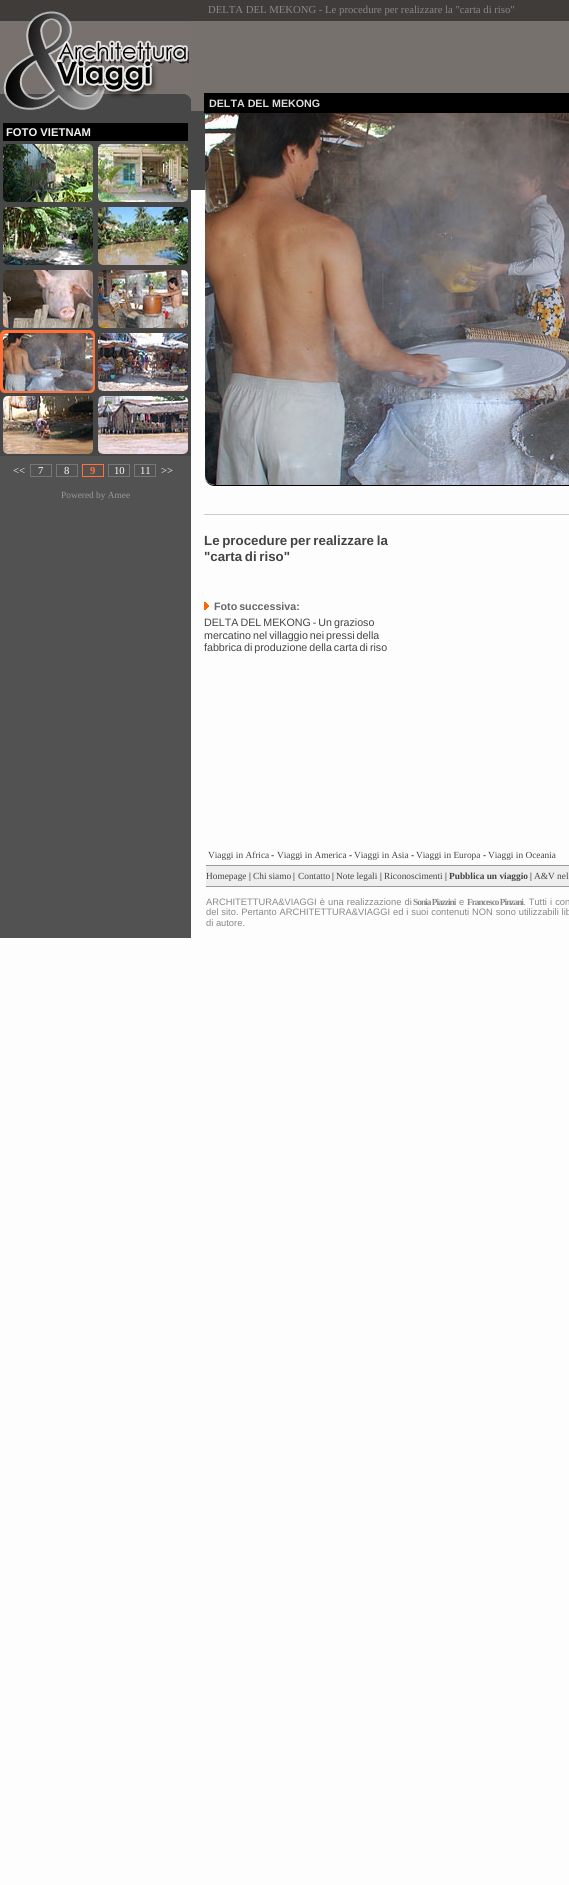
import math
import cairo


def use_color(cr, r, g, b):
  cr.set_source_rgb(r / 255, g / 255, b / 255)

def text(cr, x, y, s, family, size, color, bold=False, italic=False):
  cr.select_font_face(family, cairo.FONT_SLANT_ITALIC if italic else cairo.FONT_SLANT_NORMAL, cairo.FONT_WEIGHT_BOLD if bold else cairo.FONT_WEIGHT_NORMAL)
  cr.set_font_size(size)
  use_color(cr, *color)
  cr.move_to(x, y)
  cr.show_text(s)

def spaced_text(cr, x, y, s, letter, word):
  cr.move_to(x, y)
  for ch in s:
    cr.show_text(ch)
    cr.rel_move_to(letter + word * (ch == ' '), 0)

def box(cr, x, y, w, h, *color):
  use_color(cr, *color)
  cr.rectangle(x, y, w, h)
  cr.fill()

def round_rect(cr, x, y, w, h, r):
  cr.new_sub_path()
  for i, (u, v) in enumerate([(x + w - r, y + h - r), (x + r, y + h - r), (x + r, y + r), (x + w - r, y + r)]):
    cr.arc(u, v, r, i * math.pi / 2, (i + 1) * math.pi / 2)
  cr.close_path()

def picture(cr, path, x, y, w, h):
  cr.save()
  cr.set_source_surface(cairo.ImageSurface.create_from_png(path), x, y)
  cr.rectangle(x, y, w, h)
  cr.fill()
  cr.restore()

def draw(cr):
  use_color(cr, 253, 253, 253)
  cr.paint()
  picture(cr, "img_01.png", 191, 0, 378, 190)
  box(cr, 0, 456, 191, 482, 82, 82, 82)
  box(cr, 0, 111, 191, 345, 71, 71, 71)
  picture(cr, "img_02.png", 0, 0, 191, 111)
  box(cr, 3, 123, 185, 18, 0, 0, 0)
  picture(cr, "img_03.png", 3, 144, 90, 58)
  picture(cr, "img_04.png", 98, 144, 90, 58)
  picture(cr, "img_05.png", 3, 207, 90, 58)
  picture(cr, "img_06.png", 98, 207, 90, 58)
  picture(cr, "img_07.png", 3, 270, 90, 58)
  picture(cr, "img_08.png", 98, 270, 90, 58)
  use_color(cr, 255, 113, 54)
  round_rect(cr, 0, 330, 95, 63, 5)
  cr.fill()
  picture(cr, "img_09.png", 3, 333, 90, 58)
  picture(cr, "img_10.png", 98, 333, 90, 58)
  picture(cr, "img_11.png", 3, 396, 90, 58)
  picture(cr, "img_12.png", 98, 396, 90, 58)
  cr.rectangle(30.5, 464.5, 21, 12)
  use_color(cr, 119, 119, 119)
  cr.set_line_width(1)
  cr.stroke()
  cr.rectangle(56.5, 464.5, 21, 12)
  cr.stroke()
  cr.rectangle(82.5, 464.5, 21, 12)
  use_color(cr, 255, 113, 54)
  cr.stroke()
  cr.rectangle(108.5, 464.5, 21, 12)
  use_color(cr, 119, 119, 119)
  cr.stroke()
  cr.rectangle(134.5, 464.5, 21, 12)
  cr.stroke()
  box(cr, 204, 93, 365, 20, 0, 0, 0)
  cr.set_fill_rule(cairo.FILL_RULE_EVEN_ODD)
  cr.new_path()
  cr.move_to(205, 113)
  cr.line_to(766, 113)
  cr.line_to(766, 476)
  cr.curve_to(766, 482, 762, 486, 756, 486)
  cr.line_to(215, 486)
  cr.curve_to(209, 486, 205, 482, 205, 476)
  cr.close_path()
  cr.move_to(205, 113)
  cr.line_to(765, 113)
  cr.line_to(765, 476)
  cr.curve_to(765, 481, 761, 485, 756, 485)
  cr.line_to(215, 485)
  cr.curve_to(209, 485, 205, 481, 205, 476)
  cr.close_path()
  cr.fill()
  picture(cr, "img_13.png", 205, 113, 364, 372)
  box(cr, 204, 514, 365, 1, 204, 204, 204)
  picture(cr, "img_14.png", 204, 602, 5, 8)
  box(cr, 206, 865, 363, 1, 153, 153, 153)
  box(cr, 206, 866, 363, 20, 238, 238, 238)
  box(cr, 206, 886, 363, 1, 153, 153, 153)
  text(cr, 208, 13, "DELTA DEL MEKONG - Le procedure per realizzare la \"carta di riso\"", "Liberation Serif", 10.7, (136, 136, 136))
  text(cr, 6, 136, "FOTO VIETNAM", "Liberation Sans", 11.25, (238, 238, 238), bold=True)
  text(cr, 13, 474, "<<", "Liberation Serif", 10.7, (252, 252, 252))
  text(cr, 38, 474, "7", "Liberation Serif", 10.7, (252, 252, 252))
  text(cr, 64, 474, "8", "Liberation Serif", 10.7, (252, 252, 252))
  text(cr, 90, 474, "9", "Liberation Serif", 10.7, (255, 113, 54), bold=True)
  text(cr, 114, 474, "10", "Liberation Serif", 10.7, (252, 252, 252))
  text(cr, 140, 474, "11", "Liberation Serif", 10.7, (252, 252, 252))
  text(cr, 161, 474, ">>", "Liberation Serif", 10.7, (252, 252, 252))
  text(cr, 61, 498, "Powered by Amee", "Liberation Serif", 9.35, (153, 153, 153))
  text(cr, 209, 107, "DELTA DEL MEKONG", "Liberation Sans", 10.7, (221, 221, 221), bold=True)
  cr.set_font_size(13.3)
  use_color(cr, 68, 68, 68)
  spaced_text(cr, 204, 545, "Le procedure per realizzare la", 0, -1)
  spaced_text(cr, 204, 561, "\"carta di riso\"", 0, -1)
  cr.set_font_size(10.7)
  use_color(cr, 102, 102, 102)
  spaced_text(cr, 214, 610, "Foto successiva:", 0, -1)
  cr.select_font_face("Liberation Sans")
  use_color(cr, 68, 68, 68)
  spaced_text(cr, 204, 626, "DELTA DEL MEKONG - Un grazioso", 0, -1)
  spaced_text(cr, 204, 639, "mercatino nel villaggio nei pressi della", 0, -1)
  spaced_text(cr, 204, 651, "fabbrica di produzione della carta di riso", 0, -1)
  text(cr, 208, 858, "Viaggi in Africa", "Liberation Serif", 9.35, (68, 68, 68))
  text(cr, 271, 858, "-", "Liberation Serif", 9.35, (0, 0, 0))
  text(cr, 277, 858, "Viaggi in America", "Liberation Serif", 9.35, (68, 68, 68))
  text(cr, 349, 858, "-", "Liberation Serif", 9.35, (0, 0, 0))
  text(cr, 354, 858, "Viaggi in Asia", "Liberation Serif", 9.35, (68, 68, 68))
  text(cr, 411, 858, "-", "Liberation Serif", 9.35, (0, 0, 0))
  text(cr, 416, 858, "Viaggi in Europa", "Liberation Serif", 9.35, (68, 68, 68))
  text(cr, 483, 858, "-", "Liberation Serif", 9.35, (0, 0, 0))
  text(cr, 488, 858, "Viaggi in Oceania", "Liberation Serif", 9.35, (68, 68, 68))
  text(cr, 206, 879, "Homepage", "Liberation Serif", 9.35, (68, 68, 68))
  text(cr, 249, 879, "|", "Liberation Serif", 9.35, (0, 0, 0))
  text(cr, 253, 879, "Chi siamo", "Liberation Serif", 9.35, (68, 68, 68))
  text(cr, 293, 879, "|", "Liberation Serif", 9.35, (0, 0, 0))
  text(cr, 298, 879, "Contatto", "Liberation Serif", 9.35, (68, 68, 68))
  text(cr, 332, 879, "|", "Liberation Serif", 9.35, (0, 0, 0))
  text(cr, 336, 879, "Note legali", "Liberation Serif", 9.35, (68, 68, 68))
  text(cr, 380, 879, "|", "Liberation Serif", 9.35, (0, 0, 0))
  text(cr, 384, 879, "Riconoscimenti", "Liberation Serif", 9.35, (68, 68, 68))
  text(cr, 445, 879, "|", "Liberation Serif", 9.35, (0, 0, 0))
  text(cr, 449, 879, "Pubblica un viaggio", "Liberation Serif", 9.35, (68, 68, 68), bold=True)
  text(cr, 530, 879, "|", "Liberation Serif", 9.35, (0, 0, 0))
  text(cr, 534, 879, "A&V nel", "Liberation Serif", 9.35, (68, 68, 68))
  cr.select_font_face("Liberation Sans")
  use_color(cr, 136, 136, 136)
  spaced_text(cr, 206, 905, "ARCHITETTURA&VIAGGI è una realizzazione di", 0, 0.5)
  cr.select_font_face("Liberation Serif", cairo.FONT_SLANT_NORMAL, cairo.FONT_WEIGHT_BOLD)
  spaced_text(cr, 413, 905, "Sonia Piazzini", -1, 0)
  text(cr, 459, 905, "e", "Liberation Sans", 9.35, (136, 136, 136))
  cr.select_font_face("Liberation Serif", cairo.FONT_SLANT_NORMAL, cairo.FONT_WEIGHT_BOLD)
  spaced_text(cr, 467, 905, "Francesco Pinzani", -1, 0)
  cr.select_font_face("Liberation Sans")
  spaced_text(cr, 523, 905, ". Tutti i con", 0, 0.5)
  spaced_text(cr, 206, 915, "del sito. Pertanto ARCHITETTURA&VIAGGI ed i suoi contenuti NON sono utilizzabili lib", 0, 0.25)
  text(cr, 206, 926, "di autore.", "Liberation Sans", 9.35, (136, 136, 136))


surface = cairo.ImageSurface(cairo.FORMAT_RGB24, 569, 1885)
cr = cairo.Context(surface)
options = cairo.FontOptions()
options.set_hint_metrics(cairo.HINT_METRICS_OFF)
options.set_hint_style(cairo.HINT_STYLE_NONE)
cr.set_font_options(options)
cr.set_miter_limit(4)
draw(cr)
surface.write_to_png("out.png")
